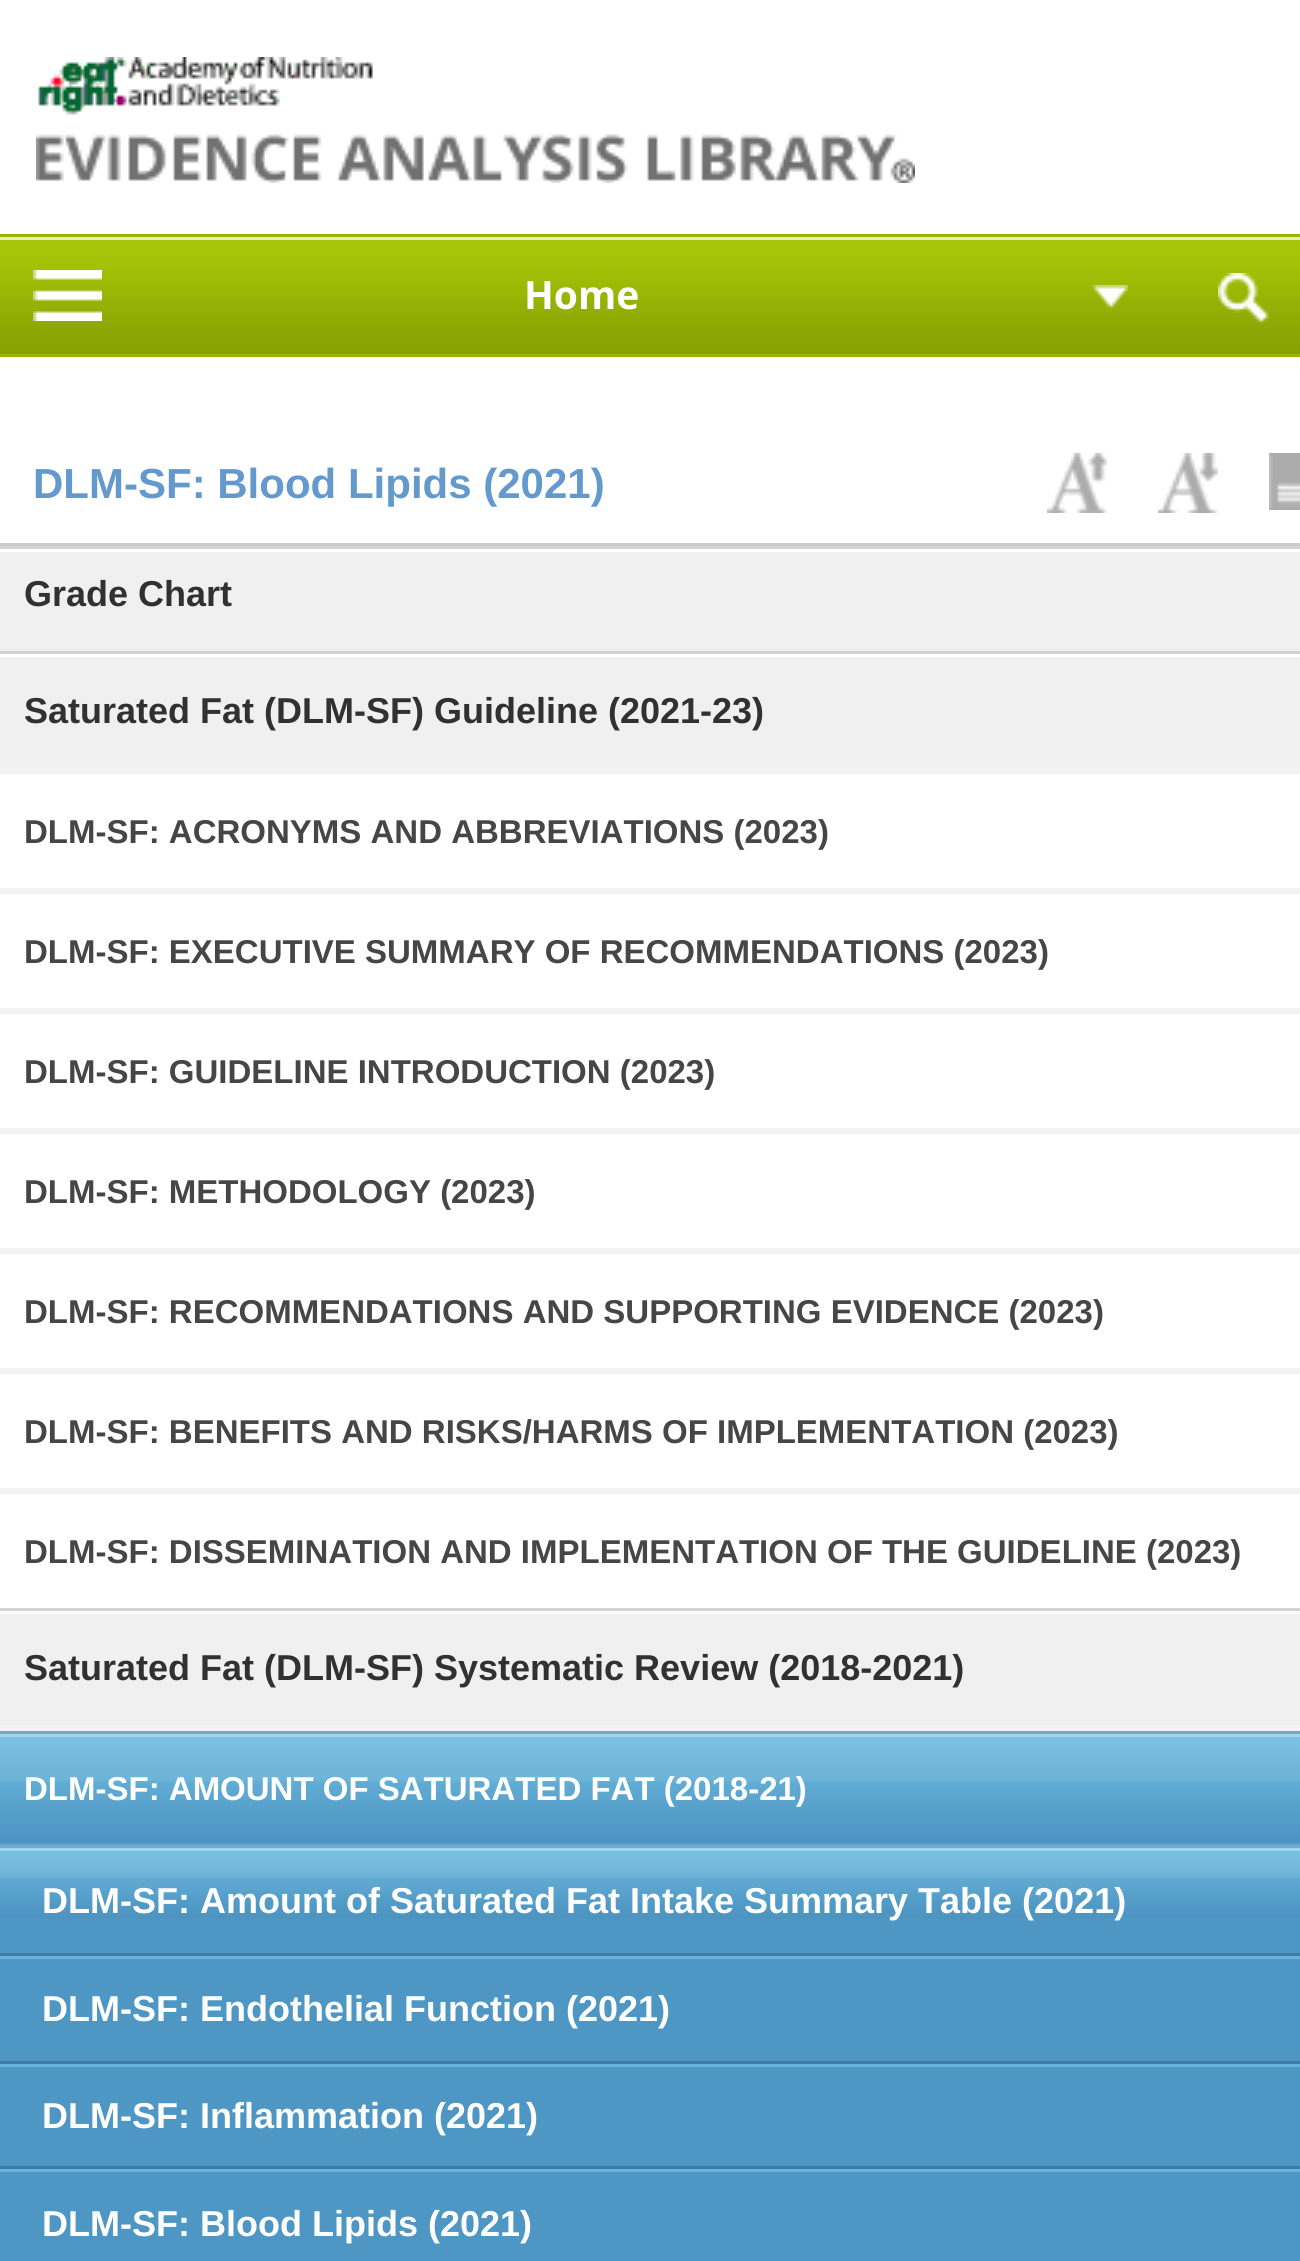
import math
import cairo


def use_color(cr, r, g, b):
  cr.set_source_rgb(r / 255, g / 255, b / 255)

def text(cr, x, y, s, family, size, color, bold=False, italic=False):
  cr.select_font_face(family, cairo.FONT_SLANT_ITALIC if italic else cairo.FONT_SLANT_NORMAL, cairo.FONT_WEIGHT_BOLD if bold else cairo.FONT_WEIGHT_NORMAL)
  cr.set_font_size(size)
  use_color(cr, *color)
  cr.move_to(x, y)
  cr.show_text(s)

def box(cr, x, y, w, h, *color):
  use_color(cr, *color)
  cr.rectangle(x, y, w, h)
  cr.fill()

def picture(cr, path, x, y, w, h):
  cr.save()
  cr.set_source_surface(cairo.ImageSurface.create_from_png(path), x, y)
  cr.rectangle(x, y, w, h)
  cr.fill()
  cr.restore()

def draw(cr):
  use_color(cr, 255, 255, 255)
  cr.paint()
  picture(cr, "img_01.png", 36, 57, 879, 126)
  box(cr, 0, 234, 1300, 3, 153, 182, 0)
  gradient = cairo.LinearGradient(651, 240, 651, 354)
  gradient.add_color_stop_rgba(0, 0.663, 0.784, 0.031, 1)
  gradient.add_color_stop_rgba(0.24, 0.639, 0.757, 0.027, 1)
  gradient.add_color_stop_rgba(0.7, 0.565, 0.667, 0.02, 1)
  gradient.add_color_stop_rgba(1, 0.529, 0.627, 0.016, 1)
  cr.set_source(gradient)
  cr.rectangle(0, 240, 1300, 114)
  cr.fill()
  box(cr, 0, 237, 1300, 3, 231, 240, 186)
  box(cr, 0, 354, 1300, 3, 153, 182, 0)
  picture(cr, "img_02.png", 33, 270, 69, 51)
  picture(cr, "img_03.png", 1092, 285, 36, 24)
  picture(cr, "img_04.png", 1218, 273, 51, 51)
  picture(cr, "img_05.png", 1047, 453, 60, 60)
  picture(cr, "img_06.png", 1158, 453, 60, 60)
  picture(cr, "img_07.png", 1269, 453, 31, 57)
  box(cr, 0, 543, 1300, 3, 204, 204, 204)
  box(cr, 0, 552, 1300, 99, 241, 240, 240)
  box(cr, 0, 546, 1300, 3, 210, 210, 210)
  box(cr, 0, 657, 1300, 111, 241, 240, 240)
  box(cr, 0, 651, 1300, 3, 210, 210, 210)
  box(cr, 0, 768, 1300, 6, 243, 243, 243)
  box(cr, 0, 888, 1300, 6, 243, 243, 243)
  box(cr, 0, 1008, 1300, 6, 243, 243, 243)
  box(cr, 0, 1128, 1300, 6, 243, 243, 243)
  box(cr, 0, 1248, 1300, 6, 243, 243, 243)
  box(cr, 0, 1368, 1300, 6, 243, 243, 243)
  box(cr, 0, 1488, 1300, 6, 243, 243, 243)
  box(cr, 0, 1614, 1300, 111, 241, 240, 240)
  box(cr, 0, 1608, 1300, 3, 210, 210, 210)
  box(cr, 0, 1725, 1300, 6, 243, 243, 243)
  gradient = cairo.LinearGradient(651, 1734, 651, 1845)
  gradient.add_color_stop_rgba(0, 0.486, 0.765, 0.894, 1)
  gradient.add_color_stop_rgba(0.41, 0.431, 0.702, 0.847, 1)
  gradient.add_color_stop_rgba(0.44, 0.38, 0.675, 0.831, 1)
  gradient.add_color_stop_rgba(0.69, 0.337, 0.624, 0.792, 1)
  gradient.add_color_stop_rgba(0.97, 0.302, 0.58, 0.761, 1)
  gradient.add_color_stop_rgba(1, 0.396, 0.639, 0.812, 1)
  cr.set_source(gradient)
  cr.rectangle(0, 1737, 1300, 108)
  cr.fill()
  box(cr, 0, 1734, 1300, 3, 163, 213, 236)
  box(cr, 0, 1731, 1300, 3, 112, 169, 210)
  box(cr, 0, 1959, 1300, 302, 78, 150, 195)
  gradient = cairo.LinearGradient(651, 1848, 651, 1953)
  gradient.add_color_stop_rgba(0, 0.482, 0.765, 0.894, 1)
  gradient.add_color_stop_rgba(0.22, 0.443, 0.718, 0.855, 1)
  gradient.add_color_stop_rgba(0.27, 0.427, 0.702, 0.847, 1)
  gradient.add_color_stop_rgba(0.29, 0.38, 0.671, 0.827, 1)
  gradient.add_color_stop_rgba(0.56, 0.314, 0.596, 0.773, 1)
  gradient.add_color_stop_rgba(0.66, 0.302, 0.58, 0.757, 1)
  gradient.add_color_stop_rgba(0.68, 0.306, 0.588, 0.765, 1)
  gradient.add_color_stop_rgba(1, 0.306, 0.588, 0.765, 1)
  cr.set_source(gradient)
  cr.rectangle(0, 1851, 1300, 102)
  cr.fill()
  box(cr, 0, 1848, 1300, 3, 162, 213, 236)
  box(cr, 0, 1845, 1300, 3, 112, 169, 210)
  box(cr, 0, 1956, 1300, 3, 108, 178, 222)
  box(cr, 0, 1953, 1300, 3, 60, 125, 165)
  box(cr, 0, 2064, 1300, 3, 108, 178, 222)
  box(cr, 0, 2061, 1300, 3, 60, 125, 165)
  box(cr, 0, 2169, 1300, 3, 108, 178, 222)
  box(cr, 0, 2166, 1300, 3, 60, 125, 165)
  text(cr, 524, 309, "Home", "Open Sans", 39, (255, 255, 255), bold=True)
  text(cr, 33, 498, "DLM-SF: Blood Lipids (2021)", "Liberation Sans", 42, (99, 153, 205), bold=True)
  text(cr, 24, 606, "Grade Chart", "Liberation Sans", 36, (49, 49, 49), bold=True)
  text(cr, 24, 723, "Saturated Fat (DLM-SF) Guideline (2021-23)", "Liberation Sans", 36, (49, 49, 49), bold=True)
  text(cr, 24, 843, "DLM-SF: ACRONYMS AND ABBREVIATIONS (2023)", "Liberation Sans", 33, (70, 70, 70), bold=True)
  text(cr, 24, 963, "DLM-SF: EXECUTIVE SUMMARY OF RECOMMENDATIONS (2023)", "Liberation Sans", 33, (70, 70, 70), bold=True)
  text(cr, 24, 1083, "DLM-SF: GUIDELINE INTRODUCTION (2023)", "Liberation Sans", 33, (70, 70, 70), bold=True)
  text(cr, 24, 1203, "DLM-SF: METHODOLOGY (2023)", "Liberation Sans", 33, (70, 70, 70), bold=True)
  text(cr, 24, 1323, "DLM-SF: RECOMMENDATIONS AND SUPPORTING EVIDENCE (2023)", "Liberation Sans", 33, (70, 70, 70), bold=True)
  text(cr, 24, 1443, "DLM-SF: BENEFITS AND RISKS/HARMS OF IMPLEMENTATION (2023)", "Liberation Sans", 33, (70, 70, 70), bold=True)
  text(cr, 24, 1563, "DLM-SF: DISSEMINATION AND IMPLEMENTATION OF THE GUIDELINE (2023)", "Liberation Sans", 33, (70, 70, 70), bold=True)
  text(cr, 24, 1680, "Saturated Fat (DLM-SF) Systematic Review (2018-2021)", "Liberation Sans", 36, (49, 49, 49), bold=True)
  text(cr, 24, 1800, "DLM-SF: AMOUNT OF SATURATED FAT (2018-21)", "Liberation Sans", 33, (255, 255, 255), bold=True)
  text(cr, 42, 1913, "DLM-SF: Amount of Saturated Fat Intake Summary Table (2021)", "Liberation Sans", 36, (255, 255, 255), bold=True)
  text(cr, 42, 2021, "DLM-SF: Endothelial Function (2021)", "Liberation Sans", 36, (255, 255, 255), bold=True)
  text(cr, 42, 2128, "DLM-SF: Inflammation (2021)", "Liberation Sans", 36, (255, 255, 255), bold=True)
  text(cr, 42, 2236, "DLM-SF: Blood Lipids (2021)", "Liberation Sans", 36, (255, 255, 255), bold=True)


surface = cairo.ImageSurface(cairo.FORMAT_RGB24, 1300, 2261)
cr = cairo.Context(surface)
options = cairo.FontOptions()
options.set_hint_metrics(cairo.HINT_METRICS_OFF)
options.set_hint_style(cairo.HINT_STYLE_NONE)
cr.set_font_options(options)
cr.set_miter_limit(4)
draw(cr)
surface.write_to_png("out.png")
